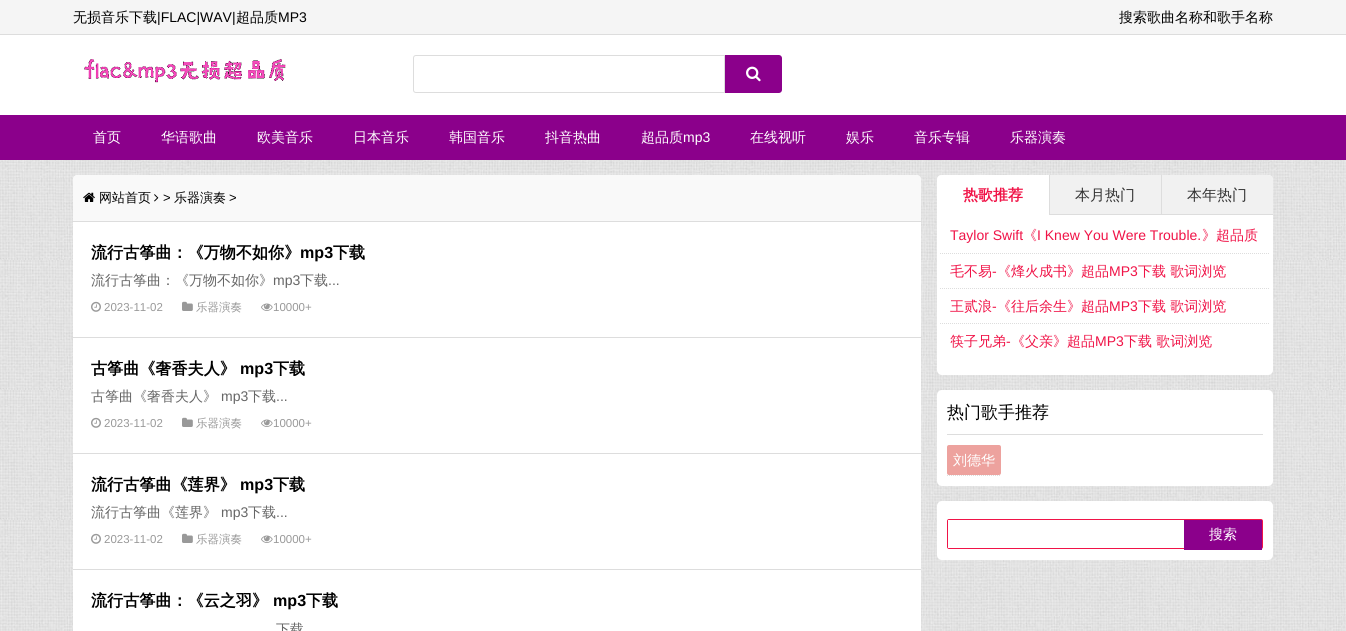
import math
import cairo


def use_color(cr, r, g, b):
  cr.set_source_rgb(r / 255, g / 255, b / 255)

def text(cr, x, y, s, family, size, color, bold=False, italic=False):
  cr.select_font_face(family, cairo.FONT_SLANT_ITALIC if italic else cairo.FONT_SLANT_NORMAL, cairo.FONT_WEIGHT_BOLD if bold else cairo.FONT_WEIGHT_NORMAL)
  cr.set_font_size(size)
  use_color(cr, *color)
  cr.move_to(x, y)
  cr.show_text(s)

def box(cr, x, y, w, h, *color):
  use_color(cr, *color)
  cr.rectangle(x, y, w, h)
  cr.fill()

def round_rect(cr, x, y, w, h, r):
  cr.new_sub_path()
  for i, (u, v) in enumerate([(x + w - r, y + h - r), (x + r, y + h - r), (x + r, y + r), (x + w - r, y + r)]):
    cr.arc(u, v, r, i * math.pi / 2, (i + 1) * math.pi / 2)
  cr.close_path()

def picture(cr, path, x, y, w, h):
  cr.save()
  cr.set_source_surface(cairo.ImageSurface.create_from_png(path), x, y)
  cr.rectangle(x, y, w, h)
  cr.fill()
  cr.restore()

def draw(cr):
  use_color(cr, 255, 255, 255)
  cr.paint()
  picture(cr, "img_01.png", 0, 160, 1346, 471)
  box(cr, 0, 0, 1346, 34, 245, 245, 245)
  box(cr, 0, 34, 1346, 1, 221, 221, 221)
  picture(cr, "img_02.png", 84, 58, 202, 25)
  cr.new_path()
  cr.move_to(416, 55.5)
  cr.line_to(724.5, 55.5)
  cr.line_to(724.5, 92.5)
  cr.line_to(416, 92.5)
  cr.curve_to(414.5, 92.5, 413.5, 91.5, 413.5, 90)
  cr.line_to(413.5, 58)
  cr.curve_to(413.5, 56.5, 414.5, 55.5, 416, 55.5)
  cr.close_path()
  cr.set_line_width(1)
  cr.stroke()
  use_color(cr, 139, 0, 139)
  cr.new_path()
  cr.move_to(725, 55)
  cr.line_to(779, 55)
  cr.curve_to(780.5, 55, 782, 56.5, 782, 58)
  cr.line_to(782, 90)
  cr.curve_to(782, 91.5, 780.5, 93, 779, 93)
  cr.line_to(725, 93)
  cr.close_path()
  cr.fill()
  picture(cr, "img_03.png", 746, 66, 15, 16)
  box(cr, 0, 115, 1346, 45, 139, 0, 139)
  use_color(cr, 255, 255, 255)
  round_rect(cr, 73, 175, 848, 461, 5)
  cr.fill()
  use_color(cr, 249, 249, 249)
  cr.new_path()
  cr.move_to(77, 175)
  cr.line_to(917, 175)
  cr.curve_to(919, 175, 921, 177, 921, 179)
  cr.line_to(921, 222)
  cr.line_to(73, 222)
  cr.line_to(73, 179)
  cr.curve_to(73, 177, 75, 175, 77, 175)
  cr.close_path()
  cr.fill()
  box(cr, 73, 221, 848, 1, 221, 221, 221)
  picture(cr, "img_04.png", 83, 192, 12, 10)
  picture(cr, "img_05.png", 154, 194, 5, 8)
  box(cr, 73, 337, 848, 1, 221, 221, 221)
  picture(cr, "img_06.png", 91, 301, 10, 11)
  picture(cr, "img_07.png", 182, 301, 11, 10)
  picture(cr, "img_08.png", 261, 303, 12, 8)
  box(cr, 73, 453, 848, 1, 221, 221, 221)
  picture(cr, "img_06.png", 91, 417, 10, 11)
  picture(cr, "img_07.png", 182, 417, 11, 10)
  picture(cr, "img_08.png", 261, 419, 12, 8)
  box(cr, 73, 569, 848, 1, 221, 221, 221)
  picture(cr, "img_06.png", 91, 533, 10, 11)
  picture(cr, "img_07.png", 182, 533, 11, 10)
  picture(cr, "img_08.png", 261, 535, 12, 8)
  use_color(cr, 255, 255, 255)
  round_rect(cr, 937, 175, 336, 200, 5)
  cr.fill()
  use_color(cr, 241, 241, 241)
  cr.new_path()
  cr.move_to(942, 175)
  cr.line_to(1268, 175)
  cr.curve_to(1271, 175, 1273, 177, 1273, 180)
  cr.line_to(1273, 215)
  cr.line_to(937, 215)
  cr.line_to(937, 180)
  cr.curve_to(937, 177, 939, 175, 942, 175)
  cr.close_path()
  cr.fill()
  use_color(cr, 255, 255, 255)
  cr.new_path()
  cr.move_to(942, 175)
  cr.line_to(1049, 175)
  cr.line_to(1049, 215)
  cr.line_to(937, 215)
  cr.line_to(937, 180)
  cr.curve_to(937, 177, 939, 175, 942, 175)
  cr.close_path()
  cr.fill()
  box(cr, 1049, 214, 224, 1, 221, 221, 221)
  box(cr, 1049, 175, 1, 40, 221, 221, 221)
  box(cr, 1161, 175, 1, 40, 221, 221, 221)
  cr.new_path()
  cr.move_to(940, 253.5)
  cr.line_to(1270, 253.5)
  cr.set_dash([1, 1])
  cr.stroke()
  cr.new_path()
  cr.move_to(940, 288.5)
  cr.line_to(1270, 288.5)
  cr.stroke()
  cr.new_path()
  cr.move_to(940, 323.5)
  cr.line_to(1270, 323.5)
  cr.stroke()
  use_color(cr, 255, 255, 255)
  round_rect(cr, 937, 390, 336, 96, 5)
  cr.fill()
  box(cr, 947, 434, 316, 1, 221, 221, 221)
  cr.new_path()
  cr.move_to(947, 475.5)
  cr.line_to(1001, 475.5)
  cr.stroke()
  use_color(cr, 237, 162, 158)
  round_rect(cr, 947, 445, 54, 30, 2)
  cr.fill()
  use_color(cr, 255, 255, 255)
  round_rect(cr, 937, 501, 336, 59, 5)
  cr.fill()
  round_rect(cr, 947.5, 519.5, 315, 29, 1.5)
  use_color(cr, 240, 19, 71)
  cr.set_dash([])
  cr.stroke()
  box(cr, 948, 520, 1, 28, 255, 255, 255)
  box(cr, 1184, 520, 78, 30, 139, 0, 139)
  text(cr, 73, 22, "无损音乐下载", "WenQuanYi Zen Hei Medium", 14, (0, 0, 0))
  text(cr, 157, 22, "|FLAC|WAV|", "Liberation Sans", 14, (0, 0, 0))
  text(cr, 236, 22, "超品质", "WenQuanYi Zen Hei Medium", 14, (0, 0, 0))
  text(cr, 278, 22, "MP3", "Liberation Sans", 14, (0, 0, 0))
  text(cr, 1119, 22, "搜索歌曲名称和歌手名称", "WenQuanYi Zen Hei Medium", 14, (0, 0, 0))
  text(cr, 93, 142, "首页", "WenQuanYi Zen Hei Medium", 14, (255, 255, 255))
  text(cr, 161, 142, "华语歌曲", "WenQuanYi Zen Hei Medium", 14, (255, 255, 255))
  text(cr, 257, 142, "欧美音乐", "WenQuanYi Zen Hei Medium", 14, (255, 255, 255))
  text(cr, 353, 142, "日本音乐", "WenQuanYi Zen Hei Medium", 14, (255, 255, 255))
  text(cr, 449, 142, "韩国音乐", "WenQuanYi Zen Hei Medium", 14, (255, 255, 255))
  text(cr, 545, 142, "抖音热曲", "WenQuanYi Zen Hei Medium", 14, (255, 255, 255))
  text(cr, 641, 142, "超品质", "WenQuanYi Zen Hei Medium", 14, (255, 255, 255))
  text(cr, 683, 142, "mp3", "Liberation Sans", 14, (255, 255, 255))
  text(cr, 750, 142, "在线视听", "WenQuanYi Zen Hei Medium", 14, (255, 255, 255))
  text(cr, 846, 142, "娱乐", "WenQuanYi Zen Hei Medium", 14, (255, 255, 255))
  text(cr, 914, 142, "音乐专辑", "WenQuanYi Zen Hei Medium", 14, (255, 255, 255))
  text(cr, 1010, 142, "乐器演奏", "WenQuanYi Zen Hei Medium", 14, (255, 255, 255))
  text(cr, 99, 202, "网站首页", "WenQuanYi Zen Hei Medium", 13, (0, 0, 0))
  text(cr, 163, 202, ">", "Liberation Sans", 13, (0, 0, 0))
  text(cr, 174, 202, "乐器演奏", "WenQuanYi Zen Hei Medium", 13, (0, 0, 0))
  text(cr, 229, 202, ">", "Liberation Sans", 13, (0, 0, 0))
  text(cr, 91, 258, "流行古筝曲：《万物不如你》", "WenQuanYi Zen Hei", 16.1, (0, 0, 0), bold=True)
  text(cr, 300, 258, "mp3", "Liberation Sans", 16.1, (0, 0, 0), bold=True)
  text(cr, 333, 258, "下载", "WenQuanYi Zen Hei", 16.1, (0, 0, 0), bold=True)
  text(cr, 91, 285, "流行古筝曲：《万物不如你》", "WenQuanYi Zen Hei Medium", 14, (102, 102, 102))
  text(cr, 273, 285, "mp3", "Liberation Sans", 14, (102, 102, 102))
  text(cr, 300, 285, "下载", "WenQuanYi Zen Hei Medium", 14, (102, 102, 102))
  text(cr, 328, 285, "...", "Liberation Sans", 14, (102, 102, 102))
  text(cr, 104, 311, "2023-11-02", "Liberation Sans", 11.5, (153, 153, 153))
  text(cr, 196, 311, "乐器演奏", "WenQuanYi Zen Hei Medium", 11.5, (153, 153, 153))
  text(cr, 273, 311, "10000+", "Liberation Sans", 11.5, (153, 153, 153))
  text(cr, 91, 374, "古筝曲《奢香夫人》", "WenQuanYi Zen Hei", 16.1, (0, 0, 0), bold=True)
  text(cr, 240, 374, "mp3", "Liberation Sans", 16.1, (0, 0, 0), bold=True)
  text(cr, 273, 374, "下载", "WenQuanYi Zen Hei", 16.1, (0, 0, 0), bold=True)
  text(cr, 91, 401, "古筝曲《奢香夫人》", "WenQuanYi Zen Hei Medium", 14, (102, 102, 102))
  text(cr, 221, 401, "mp3", "Liberation Sans", 14, (102, 102, 102))
  text(cr, 248, 401, "下载", "WenQuanYi Zen Hei Medium", 14, (102, 102, 102))
  text(cr, 276, 401, "...", "Liberation Sans", 14, (102, 102, 102))
  text(cr, 104, 427, "2023-11-02", "Liberation Sans", 11.5, (153, 153, 153))
  text(cr, 196, 427, "乐器演奏", "WenQuanYi Zen Hei Medium", 11.5, (153, 153, 153))
  text(cr, 273, 427, "10000+", "Liberation Sans", 11.5, (153, 153, 153))
  text(cr, 91, 490, "流行古筝曲《莲界》", "WenQuanYi Zen Hei", 16.1, (0, 0, 0), bold=True)
  text(cr, 240, 490, "mp3", "Liberation Sans", 16.1, (0, 0, 0), bold=True)
  text(cr, 273, 490, "下载", "WenQuanYi Zen Hei", 16.1, (0, 0, 0), bold=True)
  text(cr, 91, 517, "流行古筝曲《莲界》", "WenQuanYi Zen Hei Medium", 14, (102, 102, 102))
  text(cr, 221, 517, "mp3", "Liberation Sans", 14, (102, 102, 102))
  text(cr, 248, 517, "下载", "WenQuanYi Zen Hei Medium", 14, (102, 102, 102))
  text(cr, 276, 517, "...", "Liberation Sans", 14, (102, 102, 102))
  text(cr, 104, 543, "2023-11-02", "Liberation Sans", 11.5, (153, 153, 153))
  text(cr, 196, 543, "乐器演奏", "WenQuanYi Zen Hei Medium", 11.5, (153, 153, 153))
  text(cr, 273, 543, "10000+", "Liberation Sans", 11.5, (153, 153, 153))
  text(cr, 91, 606, "流行古筝曲：《云之羽》", "WenQuanYi Zen Hei", 16.1, (0, 0, 0), bold=True)
  text(cr, 273, 606, "mp3", "Liberation Sans", 16.1, (0, 0, 0), bold=True)
  text(cr, 306, 606, "下载", "WenQuanYi Zen Hei", 16.1, (0, 0, 0), bold=True)
  text(cr, 276, 634, "下载", "WenQuanYi Zen Hei Medium", 14, (102, 102, 102))
  text(cr, 963, 200, "热歌推荐", "WenQuanYi Zen Hei", 15, (240, 19, 71), bold=True)
  text(cr, 1075, 200, "本月热门", "WenQuanYi Zen Hei Medium", 15, (51, 51, 51))
  text(cr, 1187, 200, "本年热门", "WenQuanYi Zen Hei Medium", 15, (51, 51, 51))
  text(cr, 950, 240, "Taylor Swift", "Liberation Sans", 14, (240, 19, 71))
  text(cr, 1023, 240, "《", "WenQuanYi Zen Hei Medium", 14, (240, 19, 71))
  text(cr, 1037, 240, "I Knew You Were Trouble.", "Liberation Sans", 14, (240, 19, 71))
  text(cr, 1202, 240, "》超品质", "WenQuanYi Zen Hei Medium", 14, (240, 19, 71))
  text(cr, 950, 276, "毛不易", "WenQuanYi Zen Hei Medium", 14, (240, 19, 71))
  text(cr, 992, 276, "-", "Liberation Sans", 14, (240, 19, 71))
  text(cr, 997, 276, "《烽火成书》超品", "WenQuanYi Zen Hei Medium", 14, (240, 19, 71))
  text(cr, 1109, 276, "MP3", "Liberation Sans", 14, (240, 19, 71))
  text(cr, 1138, 276, "下载 歌词浏览", "WenQuanYi Zen Hei Medium", 14, (240, 19, 71))
  text(cr, 950, 311, "王贰浪", "WenQuanYi Zen Hei Medium", 14, (240, 19, 71))
  text(cr, 992, 311, "-", "Liberation Sans", 14, (240, 19, 71))
  text(cr, 997, 311, "《往后余生》超品", "WenQuanYi Zen Hei Medium", 14, (240, 19, 71))
  text(cr, 1109, 311, "MP3", "Liberation Sans", 14, (240, 19, 71))
  text(cr, 1138, 311, "下载 歌词浏览", "WenQuanYi Zen Hei Medium", 14, (240, 19, 71))
  text(cr, 950, 346, "筷子兄弟", "WenQuanYi Zen Hei Medium", 14, (240, 19, 71))
  text(cr, 1006, 346, "-", "Liberation Sans", 14, (240, 19, 71))
  text(cr, 1011, 346, "《父亲》超品", "WenQuanYi Zen Hei Medium", 14, (240, 19, 71))
  text(cr, 1095, 346, "MP3", "Liberation Sans", 14, (240, 19, 71))
  text(cr, 1124, 346, "下载 歌词浏览", "WenQuanYi Zen Hei Medium", 14, (240, 19, 71))
  text(cr, 947, 418, "热门歌手推荐", "WenQuanYi Zen Hei Medium", 17, (0, 0, 0))
  text(cr, 953, 465, "刘德华", "WenQuanYi Zen Hei Medium", 14, (255, 255, 255))
  text(cr, 1209, 539, "搜索", "WenQuanYi Zen Hei Medium", 14, (255, 255, 255))


surface = cairo.ImageSurface(cairo.FORMAT_RGB24, 1346, 631)
cr = cairo.Context(surface)
options = cairo.FontOptions()
options.set_hint_metrics(cairo.HINT_METRICS_OFF)
options.set_hint_style(cairo.HINT_STYLE_NONE)
cr.set_font_options(options)
cr.set_miter_limit(4)
draw(cr)
surface.write_to_png("out.png")
